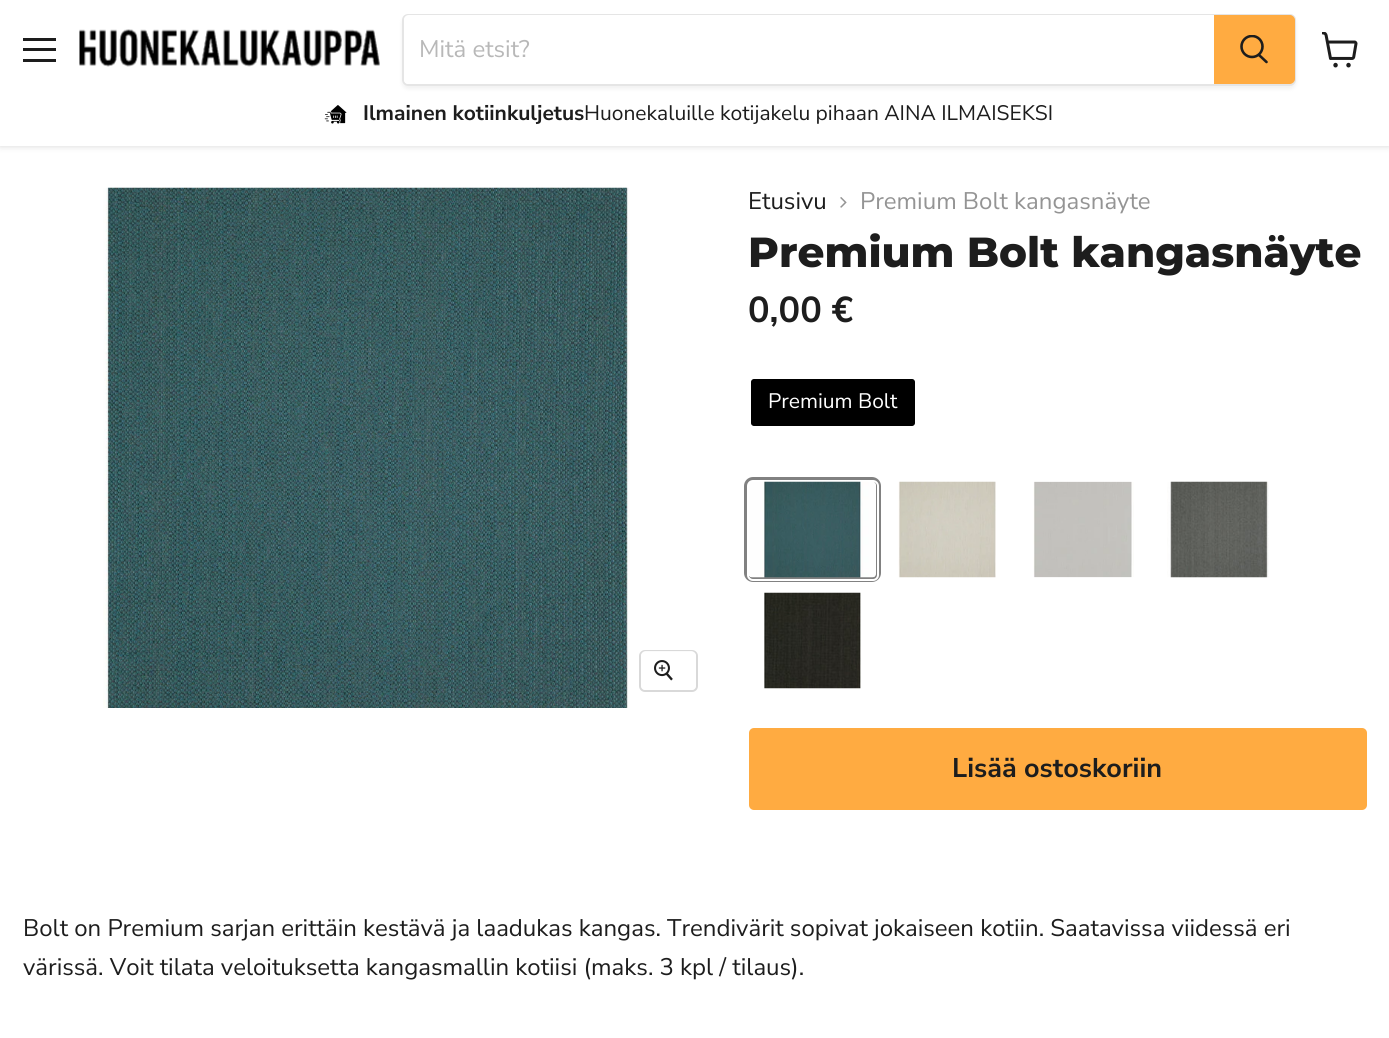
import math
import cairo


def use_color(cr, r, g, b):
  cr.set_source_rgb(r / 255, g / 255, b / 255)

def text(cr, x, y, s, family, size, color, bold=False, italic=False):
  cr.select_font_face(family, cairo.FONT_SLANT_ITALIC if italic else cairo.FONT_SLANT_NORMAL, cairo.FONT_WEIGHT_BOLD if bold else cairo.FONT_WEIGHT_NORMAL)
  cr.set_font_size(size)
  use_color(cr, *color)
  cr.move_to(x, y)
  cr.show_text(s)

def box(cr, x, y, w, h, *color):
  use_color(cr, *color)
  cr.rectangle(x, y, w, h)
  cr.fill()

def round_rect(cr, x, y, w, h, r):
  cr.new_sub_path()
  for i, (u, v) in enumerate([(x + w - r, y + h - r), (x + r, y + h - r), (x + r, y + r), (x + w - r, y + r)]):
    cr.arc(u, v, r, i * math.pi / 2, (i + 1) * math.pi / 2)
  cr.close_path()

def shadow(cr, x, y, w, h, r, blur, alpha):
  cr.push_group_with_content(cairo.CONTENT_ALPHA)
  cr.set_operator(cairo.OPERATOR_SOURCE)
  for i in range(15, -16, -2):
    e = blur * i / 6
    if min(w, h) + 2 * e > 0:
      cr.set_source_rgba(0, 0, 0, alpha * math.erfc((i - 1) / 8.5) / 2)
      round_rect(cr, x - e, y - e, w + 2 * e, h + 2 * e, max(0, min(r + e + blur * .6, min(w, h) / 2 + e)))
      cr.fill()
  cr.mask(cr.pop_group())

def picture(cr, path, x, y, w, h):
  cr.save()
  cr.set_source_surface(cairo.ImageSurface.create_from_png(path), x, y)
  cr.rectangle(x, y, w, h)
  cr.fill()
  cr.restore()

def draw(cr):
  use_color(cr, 255, 255, 255)
  cr.paint()
  use_color(cr, 128, 128, 128)
  shadow(cr, 0, 2, 1389, 145, 0, 3, 0.25)
  box(cr, 0, 0, 1389, 146, 255, 255, 255)
  box(cr, 23, 38, 33, 3, 29, 29, 29)
  box(cr, 23, 48, 33, 3, 29, 29, 29)
  box(cr, 23, 59, 33, 3, 29, 29, 29)
  picture(cr, "img_01.png", 79, 29, 301, 38)
  cr.save()
  cr.set_fill_rule(cairo.FILL_RULE_EVEN_ODD)
  cr.new_path()
  cr.move_to(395, 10)
  cr.line_to(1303, 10)
  cr.line_to(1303, 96)
  cr.line_to(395, 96)
  cr.close_path()
  cr.move_to(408, 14)
  cr.line_to(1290, 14)
  cr.curve_to(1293.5, 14, 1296, 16.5, 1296, 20)
  cr.line_to(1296, 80)
  cr.curve_to(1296, 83.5, 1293.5, 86, 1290, 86)
  cr.line_to(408, 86)
  cr.curve_to(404.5, 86, 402, 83.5, 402, 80)
  cr.line_to(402, 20)
  cr.curve_to(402, 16.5, 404.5, 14, 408, 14)
  cr.close_path()
  cr.clip()
  use_color(cr, 128, 128, 128)
  shadow(cr, 402, 17, 894, 72, 6, 2, 0.11)
  cr.restore()
  round_rect(cr, 403, 15, 892, 70, 5)
  cr.set_source_rgba(0.502, 0.502, 0.502, 0.2)
  cr.stroke()
  use_color(cr, 255, 255, 255)
  cr.new_path()
  cr.move_to(409, 15)
  cr.line_to(1214, 15)
  cr.line_to(1214, 84)
  cr.line_to(409, 84)
  cr.curve_to(406, 84, 404, 82, 404, 79)
  cr.line_to(404, 20)
  cr.curve_to(404, 17, 406, 15, 409, 15)
  cr.close_path()
  cr.fill()
  use_color(cr, 255, 171, 65)
  cr.new_path()
  cr.move_to(1215, 16)
  cr.line_to(1290, 16)
  cr.curve_to(1292, 16, 1294, 18, 1294, 20)
  cr.line_to(1294, 79)
  cr.curve_to(1294, 81, 1292, 83, 1290, 83)
  cr.line_to(1215, 83)
  cr.close_path()
  cr.fill_preserve()
  cr.stroke()
  cr.new_path()
  cr.move_to(1266.5, 62)
  cr.line_to(1259, 55)
  use_color(cr, 29, 29, 29)
  cr.set_line_width(2.6)
  cr.set_line_cap(cairo.LINE_CAP_ROUND)
  cr.stroke()
  cr.save()
  cr.rectangle(1239, 35, 30, 31)
  cr.clip()
  cr.arc(1252, 46.5, 10.5, 0, 2 * math.pi)
  cr.set_line_cap(cairo.LINE_CAP_BUTT)
  cr.stroke()
  cr.restore()
  picture(cr, "img_02.png", 324, 105, 23, 19)
  picture(cr, "img_03.png", 1322, 32, 36, 36)
  picture(cr, "img_04.png", 103, 187, 527, 521)
  round_rect(cr, 640, 651, 57, 40, 5)
  use_color(cr, 217, 217, 217)
  cr.set_line_width(2)
  cr.set_line_cap(cairo.LINE_CAP_BUTT)
  cr.stroke()
  cr.set_source_rgba(1, 1, 1, 0.9)
  round_rect(cr, 641, 651, 55, 39, 5)
  cr.fill()
  picture(cr, "img_05.png", 654, 660, 19, 21)
  picture(cr, "img_06.png", 840, 197, 7, 11)
  use_color(cr, 0, 0, 0)
  round_rect(cr, 750, 378, 166, 49, 4)
  cr.fill_preserve()
  use_color(cr, 255, 255, 255)
  cr.stroke()
  round_rect(cr, 746.5, 479.5, 132, 100, 6.5)
  use_color(cr, 129, 129, 129)
  cr.set_line_width(5)
  cr.stroke()
  round_rect(cr, 748, 481, 130, 99, 5)
  use_color(cr, 255, 255, 255)
  cr.set_line_width(2)
  cr.stroke()
  picture(cr, "img_07.png", 749, 481, 127, 97)
  picture(cr, "img_08.png", 898, 481, 98, 97)
  picture(cr, "img_09.png", 1033, 481, 101, 97)
  picture(cr, "img_10.png", 1167, 481, 102, 97)
  picture(cr, "img_11.png", 764, 592, 97, 97)
  use_color(cr, 255, 171, 65)
  round_rect(cr, 749, 728, 618, 82, 5)
  cr.fill()
  text(cr, 419, 57, "Mitä etsit?", "Nunito Sans", 24, (184, 184, 184))
  text(cr, 363, 120, "Ilmainen kotiinkuljetus", "Nunito Sans", 21, (29, 29, 29), bold=True)
  text(cr, 584, 120, "Huonekaluille kotijakelu pihaan AINA ILMAISEKSI", "Nunito Sans", 21, (29, 29, 29))
  text(cr, 748, 209, "Etusivu", "Nunito Sans", 24, (29, 29, 29))
  text(cr, 860, 209, "Premium Bolt kangasnäyte", "Nunito Sans", 24, (148, 148, 148))
  text(cr, 748, 267, "Premium Bolt kangasnäyte", "Montserrat ExtraBold", 42, (29, 29, 29))
  text(cr, 748, 322, "0,00 €", "Nunito Sans", 36, (29, 29, 29), bold=True)
  text(cr, 768, 408, "Premium Bolt", "Nunito Sans", 21, (255, 255, 255))
  text(cr, 952, 777, "Lisää ostoskoriin", "Nunito Sans", 27, (29, 29, 29), bold=True)
  text(cr, 23, 936, "Bolt on Premium sarjan erittäin kestävä ja laadukas kangas. Trendivärit sopivat jokaiseen kotiin. Saatavissa viidessä eri", "Nunito Sans", 24, (29, 29, 29))
  text(cr, 23, 975, "värissä. Voit tilata veloituksetta kangasmallin kotiisi (maks. 3 kpl / tilaus).", "Nunito Sans", 24, (29, 29, 29))


surface = cairo.ImageSurface(cairo.FORMAT_RGB24, 1389, 1038)
cr = cairo.Context(surface)
options = cairo.FontOptions()
options.set_hint_metrics(cairo.HINT_METRICS_OFF)
options.set_hint_style(cairo.HINT_STYLE_NONE)
cr.set_font_options(options)
cr.set_miter_limit(4)
draw(cr)
surface.write_to_png("out.png")
